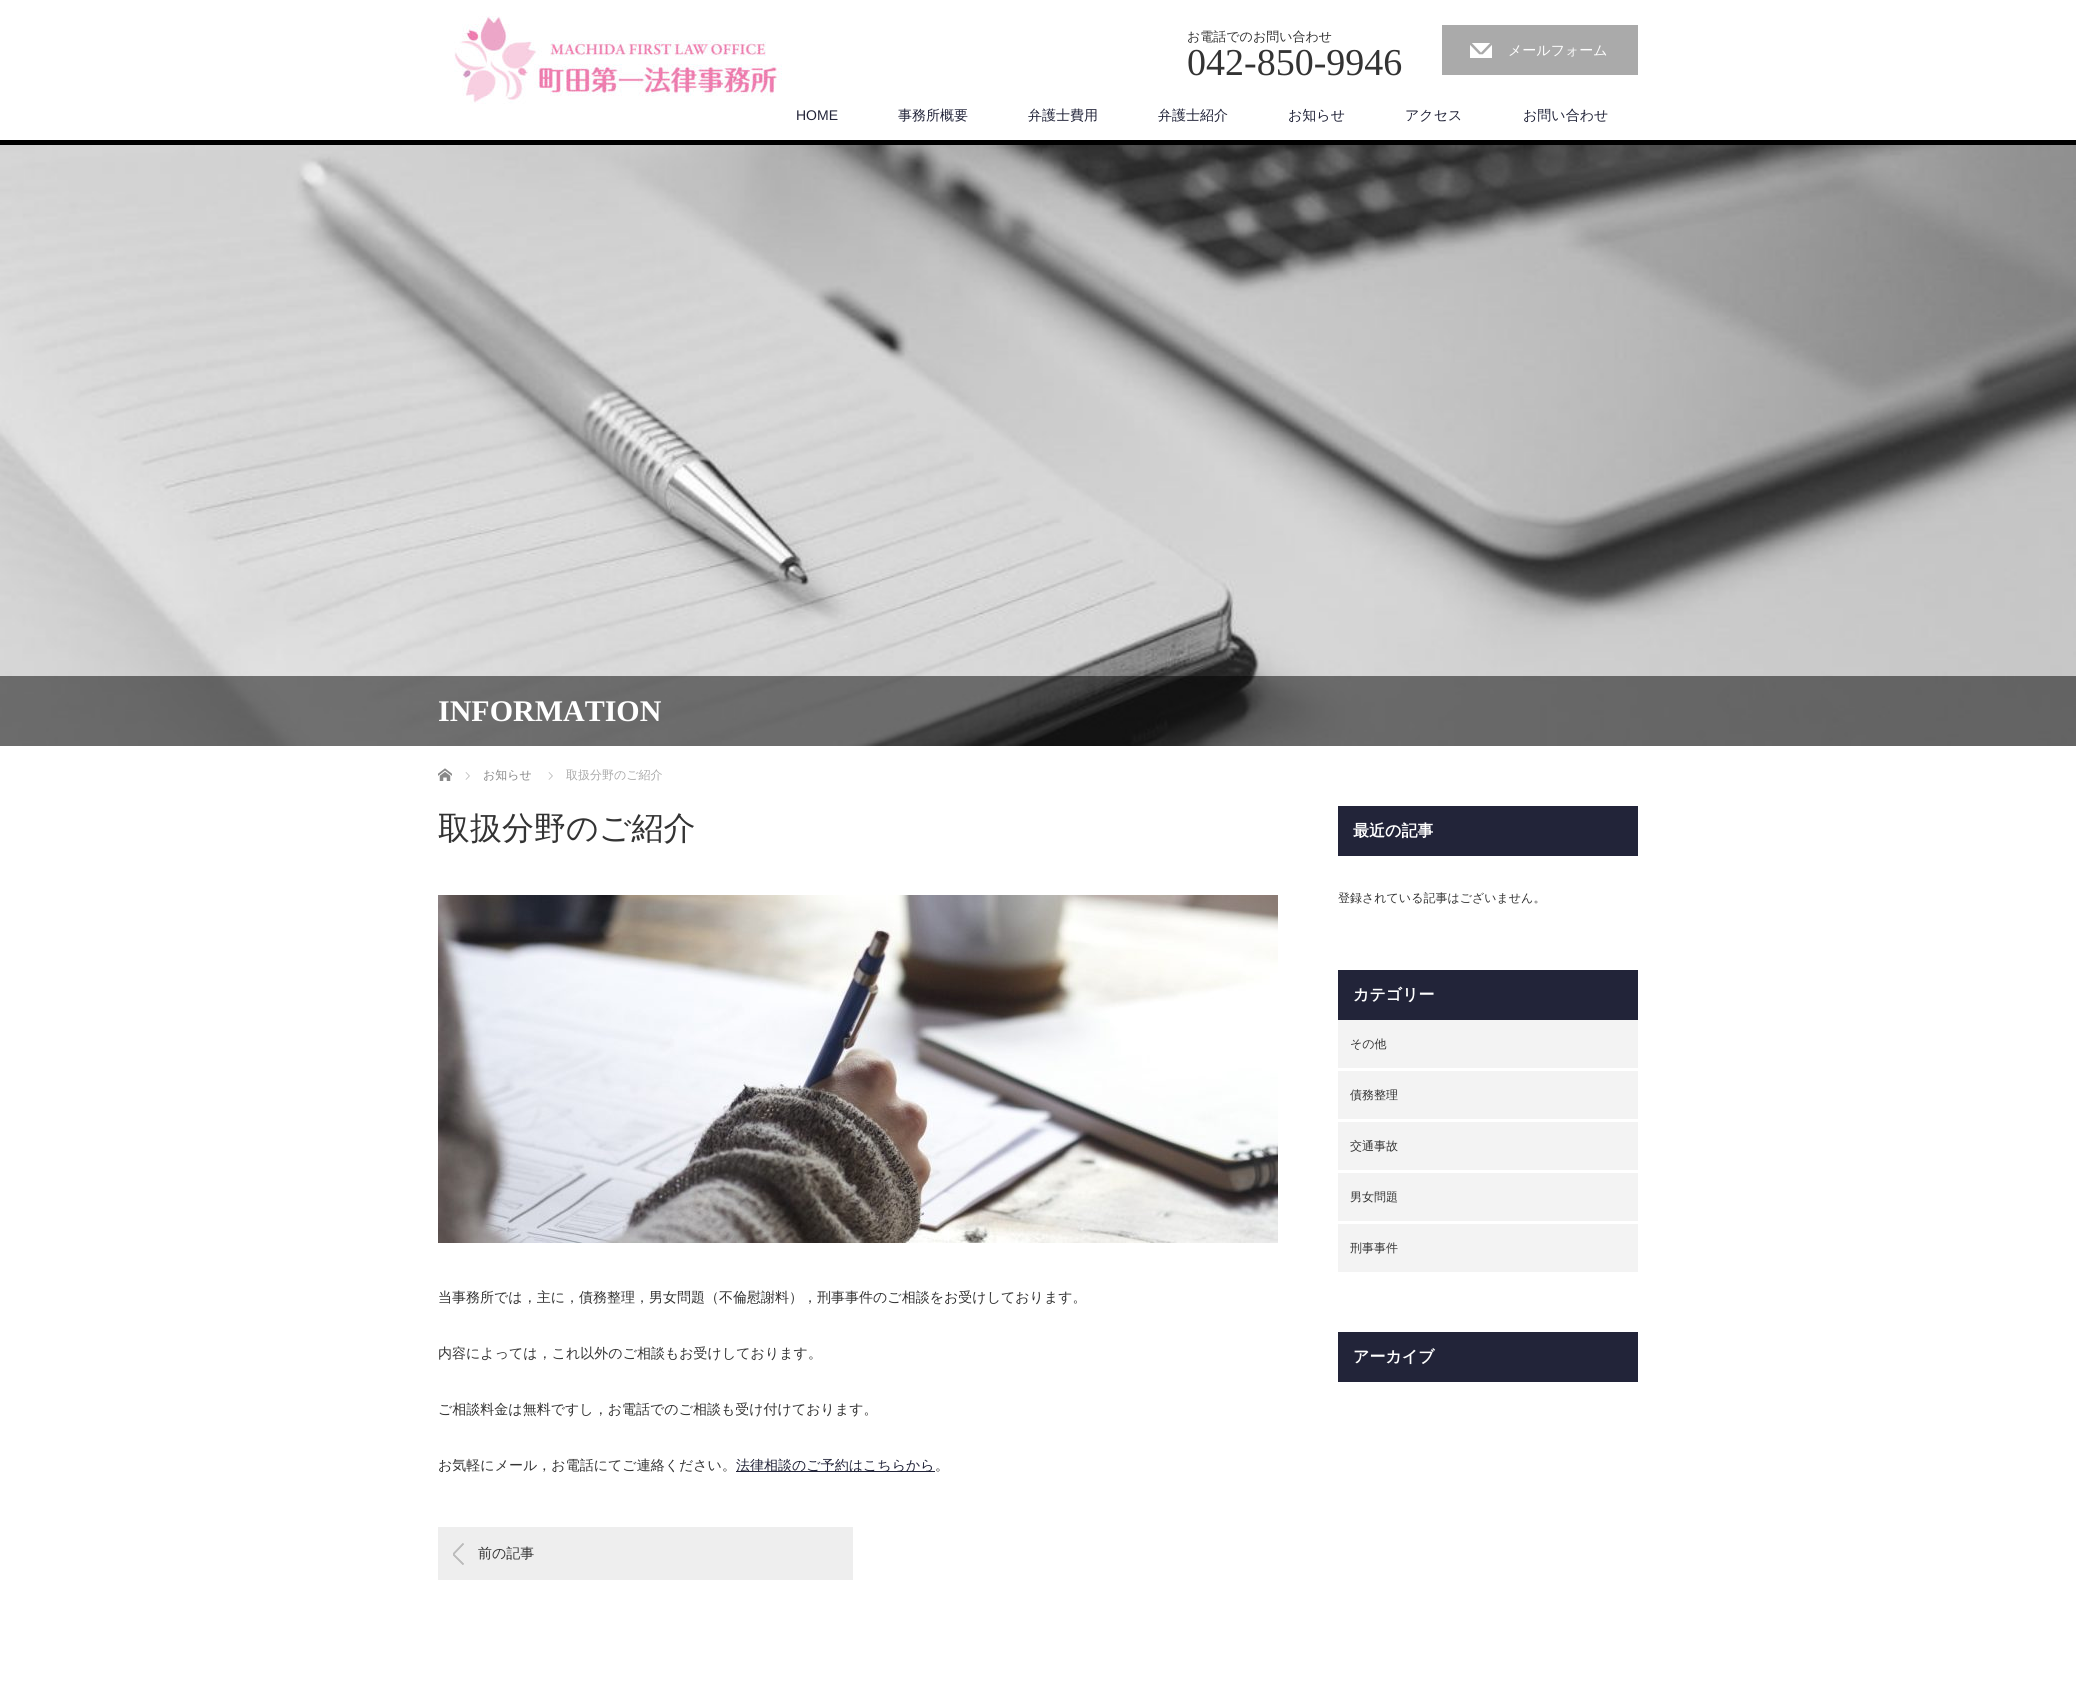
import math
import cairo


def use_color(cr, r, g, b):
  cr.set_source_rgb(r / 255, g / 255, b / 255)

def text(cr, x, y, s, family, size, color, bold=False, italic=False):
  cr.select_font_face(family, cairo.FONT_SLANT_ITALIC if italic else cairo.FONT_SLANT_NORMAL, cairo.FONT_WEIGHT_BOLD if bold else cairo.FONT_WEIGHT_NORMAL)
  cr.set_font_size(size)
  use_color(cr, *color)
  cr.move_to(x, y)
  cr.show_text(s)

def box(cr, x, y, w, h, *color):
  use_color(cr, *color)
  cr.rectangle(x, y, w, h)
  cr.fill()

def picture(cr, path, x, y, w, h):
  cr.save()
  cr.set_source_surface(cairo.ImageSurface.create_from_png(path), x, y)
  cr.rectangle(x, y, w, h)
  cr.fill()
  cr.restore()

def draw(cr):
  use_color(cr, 255, 255, 255)
  cr.paint()
  box(cr, 0, 140, 2076, 5, 0, 0, 0)
  picture(cr, "img_01.png", 454, 16, 328, 88)
  box(cr, 1442, 25, 196, 50, 170, 170, 170)
  picture(cr, "img_02.png", 1470, 43, 22, 15)
  picture(cr, "img_03.png", 0, 145, 2076, 601)
  cr.set_source_rgba(0, 0, 0, 0.5)
  cr.rectangle(0, 676, 2076, 70)
  cr.fill()
  picture(cr, "img_04.png", 438, 768, 14, 13)
  picture(cr, "img_05.png", 465, 772, 5, 8)
  picture(cr, "img_05.png", 548, 772, 5, 8)
  picture(cr, "img_06.png", 438, 895, 840, 348)
  box(cr, 736, 1471, 199, 1, 34, 36, 57)
  box(cr, 438, 1527, 415, 53, 238, 238, 238)
  picture(cr, "img_07.png", 453, 1543, 11, 22)
  box(cr, 1338, 806, 300, 50, 34, 36, 57)
  box(cr, 1338, 970, 300, 50, 34, 36, 57)
  box(cr, 1338, 1020, 300, 48, 243, 243, 243)
  box(cr, 1338, 1071, 300, 48, 243, 243, 243)
  box(cr, 1338, 1122, 300, 48, 243, 243, 243)
  box(cr, 1338, 1173, 300, 48, 243, 243, 243)
  box(cr, 1338, 1224, 300, 48, 243, 243, 243)
  box(cr, 1338, 1332, 300, 50, 34, 36, 57)
  text(cr, 1187, 41, "お電話でのお問い合わせ", "WenQuanYi Zen Hei Medium", 13, (51, 51, 51))
  text(cr, 1187, 75, "042-850-9946", "Liberation Serif", 38, (51, 51, 51))
  text(cr, 1508, 55, "メールフォーム", "WenQuanYi Zen Hei Medium", 14, (255, 255, 255))
  text(cr, 796, 120, "HOME", "Liberation Sans", 14, (34, 36, 57))
  text(cr, 898, 120, "事務所概要", "WenQuanYi Zen Hei Medium", 14, (34, 36, 57))
  text(cr, 1028, 120, "弁護士費用", "WenQuanYi Zen Hei Medium", 14, (34, 36, 57))
  text(cr, 1158, 120, "弁護士紹介", "WenQuanYi Zen Hei Medium", 14, (34, 36, 57))
  text(cr, 1288, 120, "お知らせ", "WenQuanYi Zen Hei Medium", 14, (34, 36, 57))
  text(cr, 1405, 120, "アクセス", "WenQuanYi Zen Hei Medium", 14, (34, 36, 57))
  text(cr, 1523, 120, "お問い合わせ", "WenQuanYi Zen Hei Medium", 14, (34, 36, 57))
  text(cr, 438, 721, "INFORMATION", "Liberation Serif", 30, (255, 255, 255), bold=True)
  text(cr, 483, 779, "お知らせ", "WenQuanYi Zen Hei Medium", 12, (136, 136, 136))
  text(cr, 566, 779, "取扱分野のご紹介", "WenQuanYi Zen Hei Medium", 12, (170, 170, 170))
  text(cr, 438, 839, "取扱分野のご紹介", "WenQuanYi Zen Hei Medium", 32, (51, 51, 51))
  text(cr, 438, 1302, "当事務所では，主に，債務整理，男女問題（不倫慰謝料），刑事事件のご相談をお受けしております。", "WenQuanYi Zen Hei Medium", 14, (51, 51, 51))
  text(cr, 438, 1358, "内容によっては，これ以外のご相談もお受けしております。", "WenQuanYi Zen Hei Medium", 14, (51, 51, 51))
  text(cr, 438, 1414, "ご相談料金は無料ですし，お電話でのご相談も受け付けております。", "WenQuanYi Zen Hei Medium", 14, (51, 51, 51))
  text(cr, 438, 1470, "お気軽にメール，お電話にてご連絡ください。", "WenQuanYi Zen Hei Medium", 14, (51, 51, 51))
  text(cr, 736, 1470, "法律相談のご予約はこちらから", "WenQuanYi Zen Hei Medium", 14, (34, 36, 57))
  text(cr, 935, 1470, "。", "WenQuanYi Zen Hei Medium", 14, (51, 51, 51))
  text(cr, 478, 1558, "前の記事", "WenQuanYi Zen Hei Medium", 14, (51, 51, 51))
  text(cr, 1353, 836, "最近の記事", "WenQuanYi Zen Hei", 16, (255, 255, 255), bold=True)
  text(cr, 1338, 902, "登録されている記事はございません。", "WenQuanYi Zen Hei Medium", 12, (51, 51, 51))
  text(cr, 1353, 1000, "カテゴリー", "WenQuanYi Zen Hei", 16, (255, 255, 255), bold=True)
  text(cr, 1350, 1048, "その他", "WenQuanYi Zen Hei Medium", 12, (51, 51, 51))
  text(cr, 1350, 1099, "債務整理", "WenQuanYi Zen Hei Medium", 12, (51, 51, 51))
  text(cr, 1350, 1150, "交通事故", "WenQuanYi Zen Hei Medium", 12, (51, 51, 51))
  text(cr, 1350, 1201, "男女問題", "WenQuanYi Zen Hei Medium", 12, (51, 51, 51))
  text(cr, 1350, 1252, "刑事事件", "WenQuanYi Zen Hei Medium", 12, (51, 51, 51))
  text(cr, 1353, 1362, "アーカイブ", "WenQuanYi Zen Hei", 16, (255, 255, 255), bold=True)


surface = cairo.ImageSurface(cairo.FORMAT_RGB24, 2076, 1694)
cr = cairo.Context(surface)
options = cairo.FontOptions()
options.set_hint_metrics(cairo.HINT_METRICS_OFF)
options.set_hint_style(cairo.HINT_STYLE_NONE)
cr.set_font_options(options)
cr.set_miter_limit(4)
draw(cr)
surface.write_to_png("out.png")
